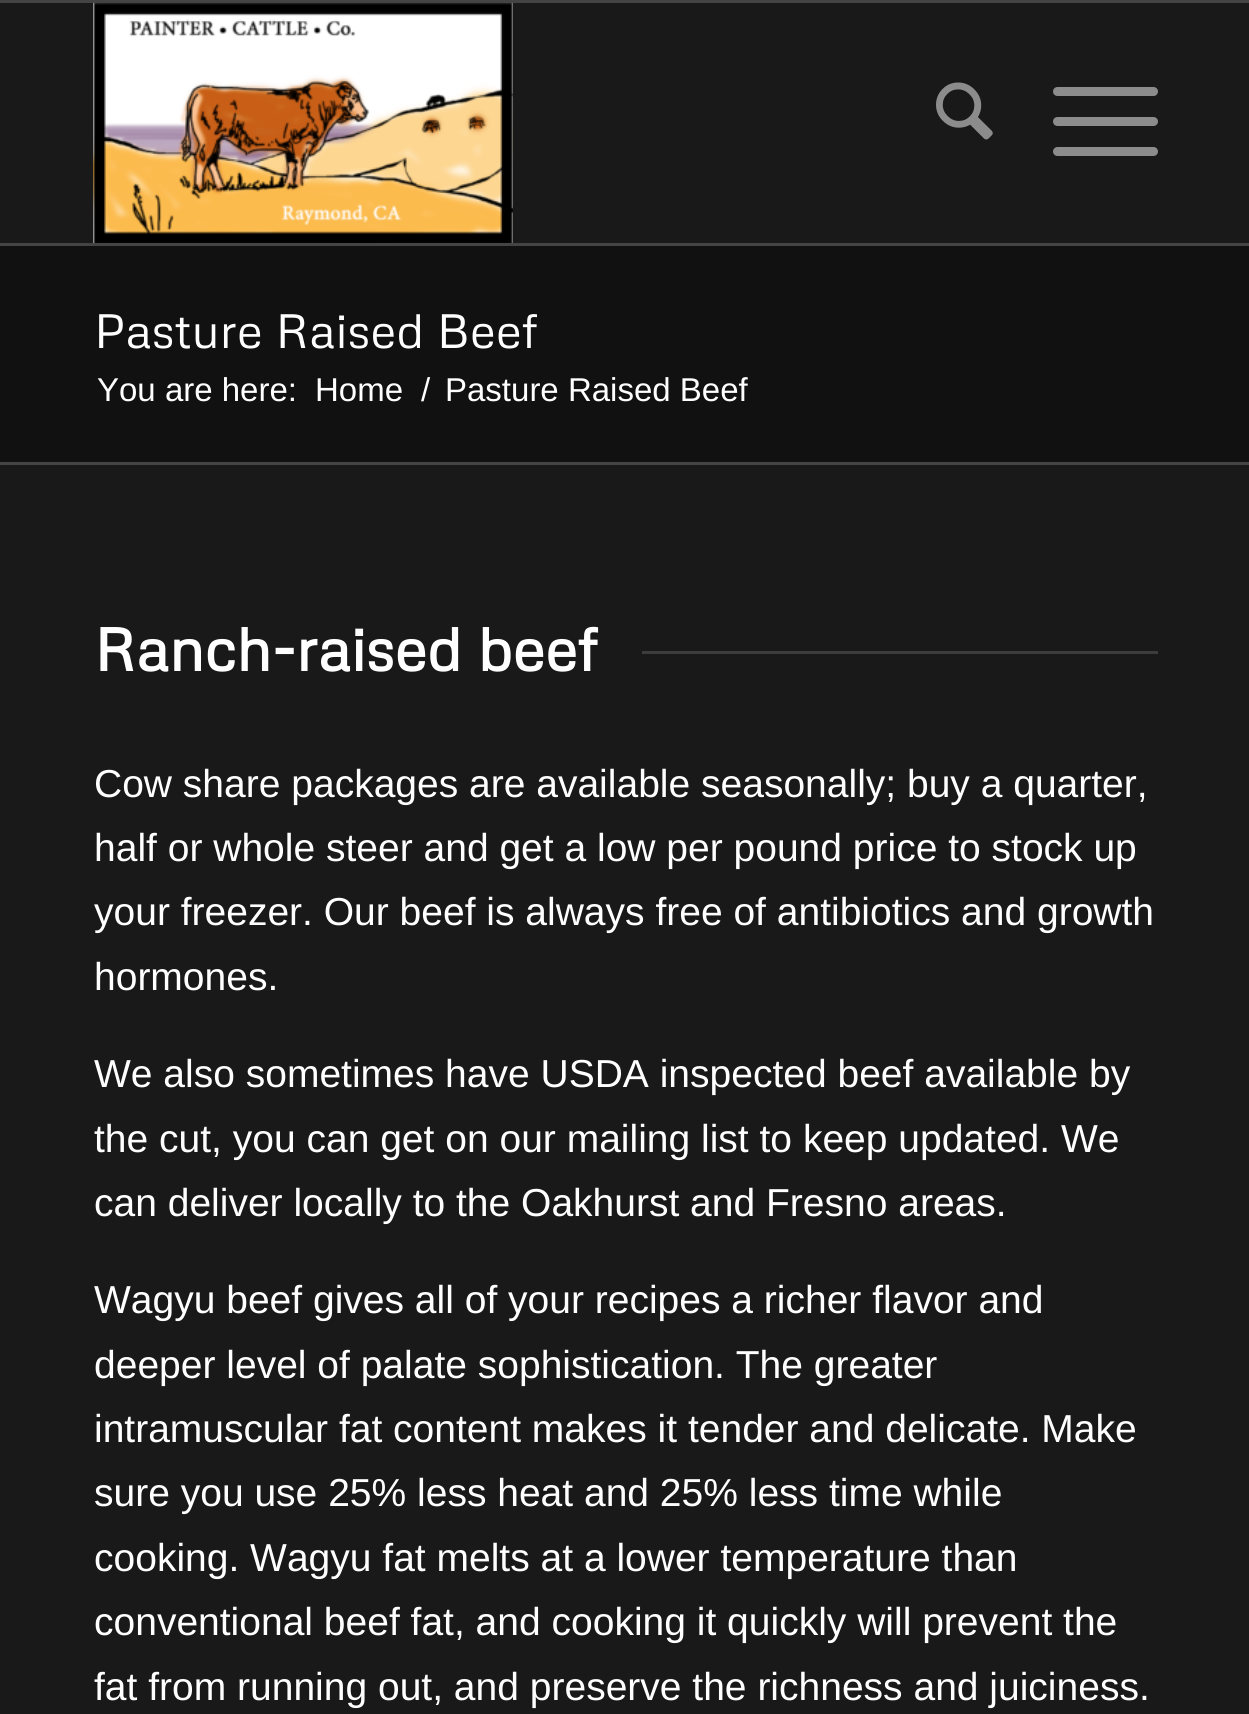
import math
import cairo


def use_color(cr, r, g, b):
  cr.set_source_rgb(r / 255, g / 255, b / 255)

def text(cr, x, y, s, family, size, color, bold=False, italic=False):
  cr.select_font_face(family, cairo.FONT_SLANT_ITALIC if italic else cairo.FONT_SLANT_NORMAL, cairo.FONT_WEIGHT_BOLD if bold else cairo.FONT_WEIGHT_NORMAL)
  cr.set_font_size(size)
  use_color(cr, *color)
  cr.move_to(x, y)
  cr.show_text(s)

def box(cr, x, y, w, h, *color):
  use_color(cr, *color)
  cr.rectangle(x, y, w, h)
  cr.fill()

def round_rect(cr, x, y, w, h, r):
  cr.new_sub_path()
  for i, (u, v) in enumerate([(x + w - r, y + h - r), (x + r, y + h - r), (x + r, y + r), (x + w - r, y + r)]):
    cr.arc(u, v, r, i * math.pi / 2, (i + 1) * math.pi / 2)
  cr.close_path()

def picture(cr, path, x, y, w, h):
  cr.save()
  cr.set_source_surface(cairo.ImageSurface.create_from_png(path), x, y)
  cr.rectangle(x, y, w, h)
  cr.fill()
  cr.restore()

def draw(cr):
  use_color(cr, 25, 25, 25)
  cr.paint()
  box(cr, 0, 0, 1249, 3, 68, 68, 68)
  box(cr, 0, 243, 1249, 3, 68, 68, 68)
  picture(cr, "img_01.png", 93, 3, 420, 240)
  picture(cr, "img_02.png", 936, 82, 57, 58)
  use_color(cr, 140, 140, 140)
  round_rect(cr, 1053, 117, 105, 9, 4.5)
  cr.fill()
  round_rect(cr, 1053, 87, 105, 9, 4.5)
  cr.fill()
  round_rect(cr, 1053, 147, 105, 9, 4.5)
  cr.fill()
  box(cr, 0, 246, 1249, 216, 17, 17, 17)
  box(cr, 0, 462, 1249, 3, 68, 68, 68)
  box(cr, 642, 651, 516, 3, 60, 60, 60)
  text(cr, 94, 348, "Pasture Raised Beef", "Metrophobic", 48, (255, 255, 255))
  text(cr, 97, 401, "You are here:", "Liberation Sans", 33, (255, 255, 255))
  text(cr, 315, 401, "Home", "Liberation Sans", 33, (255, 255, 255))
  text(cr, 421, 401, "/", "Liberation Sans", 33, (255, 255, 255))
  text(cr, 445, 401, "Pasture Raised Beef", "Liberation Sans", 33, (255, 255, 255))
  text(cr, 94, 671, "Ranch-raised beef", "Metrophobic", 60, (255, 255, 255), bold=True)
  text(cr, 94, 797, "Cow share packages are available seasonally; buy a quarter,", "Liberation Sans", 39, (255, 255, 255))
  text(cr, 94, 861, "half or whole steer and get a low per pound price to stock up", "Liberation Sans", 39, (255, 255, 255))
  text(cr, 94, 925, "your freezer. Our beef is always free of antibiotics and growth", "Liberation Sans", 39, (255, 255, 255))
  text(cr, 94, 990, "hormones.", "Liberation Sans", 39, (255, 255, 255))
  text(cr, 94, 1087, "We also sometimes have USDA inspected beef available by", "Liberation Sans", 39, (255, 255, 255))
  text(cr, 94, 1152, "the cut, you can get on our mailing list to keep updated. We", "Liberation Sans", 39, (255, 255, 255))
  text(cr, 94, 1216, "can deliver locally to the Oakhurst and Fresno areas.", "Liberation Sans", 39, (255, 255, 255))
  text(cr, 94, 1313, "Wagyu beef gives all of your recipes a richer flavor and", "Liberation Sans", 39, (255, 255, 255))
  text(cr, 94, 1378, "deeper level of palate sophistication. The greater", "Liberation Sans", 39, (255, 255, 255))
  text(cr, 94, 1442, "intramuscular fat content makes it tender and delicate. Make", "Liberation Sans", 39, (255, 255, 255))
  text(cr, 94, 1506, "sure you use 25% less heat and 25% less time while", "Liberation Sans", 39, (255, 255, 255))
  text(cr, 94, 1571, "cooking. Wagyu fat melts at a lower temperature than", "Liberation Sans", 39, (255, 255, 255))
  text(cr, 94, 1635, "conventional beef fat, and cooking it quickly will prevent the", "Liberation Sans", 39, (255, 255, 255))
  text(cr, 94, 1700, "fat from running out, and preserve the richness and juiciness.", "Liberation Sans", 39, (255, 255, 255))


surface = cairo.ImageSurface(cairo.FORMAT_RGB24, 1249, 1714)
cr = cairo.Context(surface)
options = cairo.FontOptions()
options.set_hint_metrics(cairo.HINT_METRICS_OFF)
options.set_hint_style(cairo.HINT_STYLE_NONE)
cr.set_font_options(options)
cr.set_miter_limit(4)
draw(cr)
surface.write_to_png("out.png")
